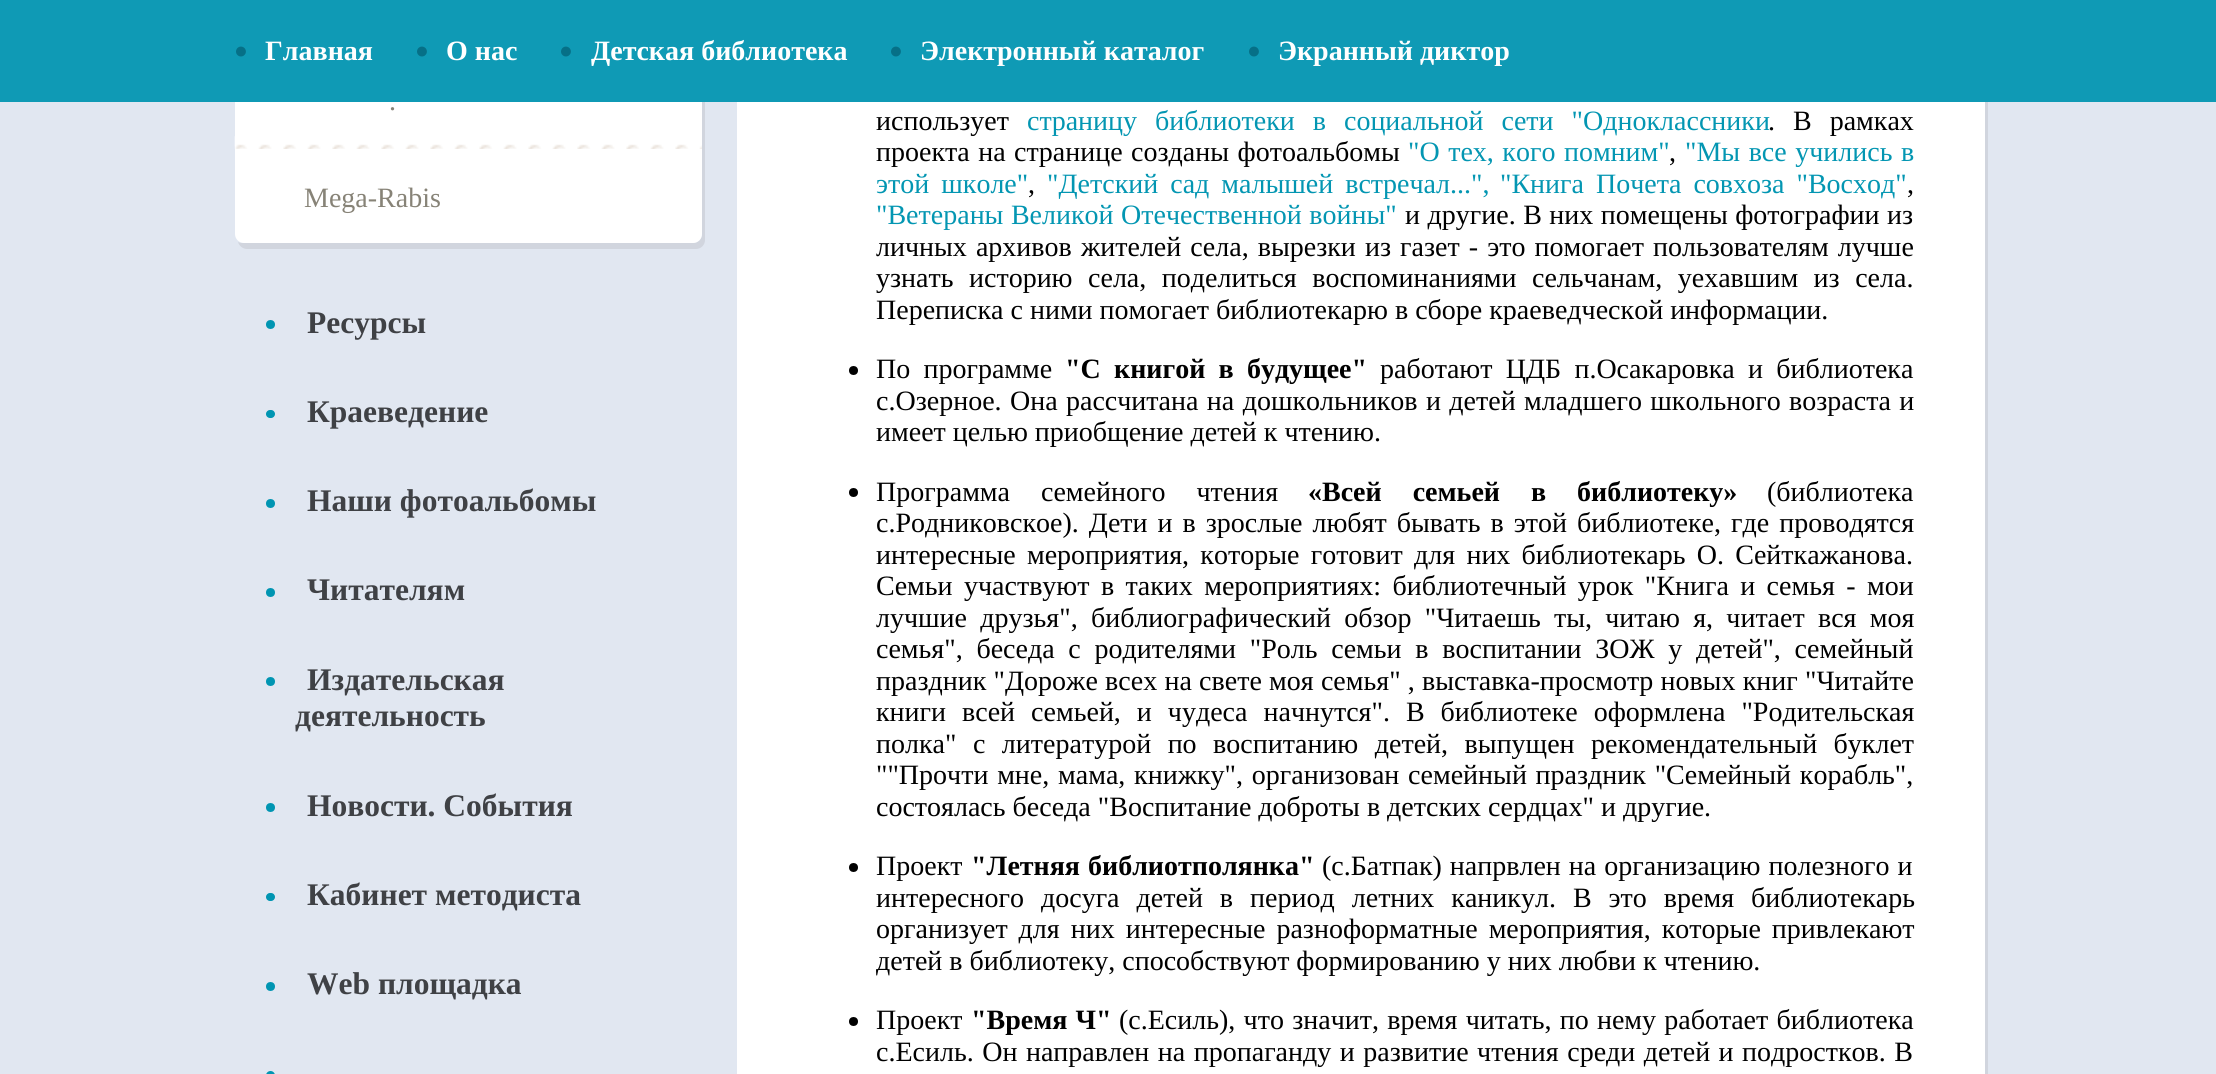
import math
import cairo


def use_color(cr, r, g, b):
  cr.set_source_rgb(r / 255, g / 255, b / 255)

def text(cr, x, y, s, family, size, color, bold=False, italic=False):
  cr.select_font_face(family, cairo.FONT_SLANT_ITALIC if italic else cairo.FONT_SLANT_NORMAL, cairo.FONT_WEIGHT_BOLD if bold else cairo.FONT_WEIGHT_NORMAL)
  cr.set_font_size(size)
  use_color(cr, *color)
  cr.move_to(x, y)
  cr.show_text(s)

def spaced_text(cr, x, y, s, letter, word):
  cr.move_to(x, y)
  for ch in s:
    cr.show_text(ch)
    cr.rel_move_to(letter + word * (ch == ' '), 0)

def box(cr, x, y, w, h, *color):
  use_color(cr, *color)
  cr.rectangle(x, y, w, h)
  cr.fill()

def round_rect(cr, x, y, w, h, r):
  cr.new_sub_path()
  for i, (u, v) in enumerate([(x + w - r, y + h - r), (x + r, y + h - r), (x + r, y + r), (x + w - r, y + r)]):
    cr.arc(u, v, r, i * math.pi / 2, (i + 1) * math.pi / 2)
  cr.close_path()

def picture(cr, path, x, y, w, h):
  cr.save()
  cr.set_source_surface(cairo.ImageSurface.create_from_png(path), x, y)
  cr.rectangle(x, y, w, h)
  cr.fill()
  cr.restore()

def draw(cr):
  use_color(cr, 225, 231, 241)
  cr.paint()
  use_color(cr, 209, 213, 222)
  cr.new_path()
  cr.move_to(238, 242)
  cr.curve_to(239, 246, 243, 249, 247, 249)
  cr.line_to(696, 249)
  cr.curve_to(701, 249, 705, 245, 705, 240)
  cr.line_to(705, -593)
  cr.curve_to(705, -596, 704, -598, 702, -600)
  cr.line_to(702, 234)
  cr.curve_to(702, 239, 698, 243, 693, 243)
  cr.line_to(243, 243)
  cr.curve_to(241, 243, 240, 243, 238, 242)
  cr.close_path()
  cr.fill()
  use_color(cr, 255, 255, 255)
  round_rect(cr, 235, -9, 467, 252, 9)
  cr.fill()
  use_color(cr, 209, 213, 222)
  cr.new_path()
  cr.move_to(740, 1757)
  cr.curve_to(741, 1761, 745, 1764, 749, 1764)
  cr.line_to(1979, 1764)
  cr.curve_to(1984, 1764, 1988, 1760, 1988, 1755)
  cr.line_to(1988, -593)
  cr.curve_to(1988, -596, 1987, -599, 1984, -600)
  cr.line_to(1984, 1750)
  cr.curve_to(1984, 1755, 1981, 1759, 1976, 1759)
  cr.line_to(746, 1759)
  cr.curve_to(744, 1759, 742, 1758, 740, 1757)
  cr.close_path()
  cr.fill()
  box(cr, 0, 0, 2216, 102, 15, 154, 181)
  picture(cr, "img_01.png", 234, 136, 468, 13)
  use_color(cr, 0, 149, 178)
  cr.arc(270.5, 324.5, 4.5, 0, 2 * math.pi)
  cr.fill()
  round_rect(cr, 266, 410, 9, 8, 4)
  cr.fill()
  cr.arc(270.5, 503.5, 4.5, 0, 2 * math.pi)
  cr.fill()
  cr.arc(270.5, 592.5, 4.5, 0, 2 * math.pi)
  cr.fill()
  cr.arc(270.5, 681.5, 4.5, 0, 2 * math.pi)
  cr.fill()
  cr.arc(270.5, 807.5, 4.5, 0, 2 * math.pi)
  cr.fill()
  round_rect(cr, 266, 893, 9, 8, 4)
  cr.fill()
  cr.arc(270.5, 986.5, 4.5, 0, 2 * math.pi)
  cr.fill()
  round_rect(cr, 266, 1071, 9, 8, 4.5)
  cr.fill()
  box(cr, 737, 102, 1248, 972, 255, 255, 255)
  use_color(cr, 0, 0, 0)
  cr.arc(853.5, 370.5, 4.5, 0, 2 * math.pi)
  cr.fill()
  cr.arc(853.5, 492.5, 4.5, 0, 2 * math.pi)
  cr.fill()
  cr.arc(853.5, 867.5, 4.5, 0, 2 * math.pi)
  cr.fill()
  cr.arc(853.5, 1021.5, 4.5, 0, 2 * math.pi)
  cr.fill()
  text(cr, 234, 58, "●", "Liberation Serif", 23, (6, 112, 135), bold=True)
  text(cr, 265, 60, "Главная", "Liberation Serif", 28, (255, 255, 255), bold=True)
  text(cr, 415, 58, "●", "Liberation Serif", 23, (6, 112, 135), bold=True)
  text(cr, 446, 60, "О нас", "Liberation Serif", 28, (255, 255, 255), bold=True)
  text(cr, 559, 58, "●", "Liberation Serif", 23, (6, 112, 135), bold=True)
  text(cr, 591, 60, "Детская библиотека", "Liberation Serif", 28, (255, 255, 255), bold=True)
  text(cr, 889, 58, "●", "Liberation Serif", 23, (6, 112, 135), bold=True)
  text(cr, 920, 60, "Электронный каталог", "Liberation Serif", 28, (255, 255, 255), bold=True)
  text(cr, 1247, 58, "●", "Liberation Serif", 23, (6, 112, 135), bold=True)
  text(cr, 1278, 60, "Экранный диктор", "Liberation Serif", 28, (255, 255, 255), bold=True)
  text(cr, 389, 110, ".", "Liberation Serif", 28, (135, 131, 119))
  text(cr, 304, 207, "Mega-Rabis", "Liberation Serif", 28, (135, 131, 119))
  text(cr, 307, 333, "Ресурсы", "Liberation Serif", 31.5, (63, 65, 69), bold=True)
  text(cr, 307, 422, "Краеведение", "Liberation Serif", 31.5, (63, 65, 69), bold=True)
  text(cr, 307, 511, "Наши фотоальбомы", "Liberation Serif", 31.5, (63, 65, 69), bold=True)
  text(cr, 307, 600, "Читателям", "Liberation Serif", 31.5, (63, 65, 69), bold=True)
  text(cr, 307, 690, "Издательская", "Liberation Serif", 31.5, (63, 65, 69), bold=True)
  text(cr, 295, 726, "деятельность", "Liberation Serif", 31.5, (63, 65, 69), bold=True)
  text(cr, 307, 816, "Новости. События", "Liberation Serif", 31.5, (63, 65, 69), bold=True)
  text(cr, 307, 905, "Кабинет методиста", "Liberation Serif", 31.5, (63, 65, 69), bold=True)
  text(cr, 307, 994, "Web площадка", "Liberation Serif", 31.5, (63, 65, 69), bold=True)
  text(cr, 876, 130, "использует", "Liberation Serif", 28, (0, 0, 0))
  use_color(cr, 3, 150, 178)
  spaced_text(cr, 1027, 130, "страницу библиотеки в социальной сети \"Одноклассники", 0, 11)
  use_color(cr, 0, 0, 0)
  spaced_text(cr, 1768, 130, ". В рамках", 0, 11)
  spaced_text(cr, 876, 161, "проекта на странице созданы фотоальбомы", 0, 1.5)
  use_color(cr, 3, 150, 178)
  spaced_text(cr, 1408, 161, "\"О тех, кого помним\"", 0, 1.5)
  text(cr, 1669, 161, ",", "Liberation Serif", 28, (0, 0, 0))
  use_color(cr, 3, 150, 178)
  spaced_text(cr, 1685, 161, "\"Мы все учились в", 0, 1.5)
  spaced_text(cr, 876, 193, "этой школе\"", 0, 5)
  text(cr, 1028, 193, ",", "Liberation Serif", 28, (0, 0, 0))
  use_color(cr, 3, 150, 178)
  spaced_text(cr, 1047, 193, "\"Детский сад малышей встречал...\",", 0, 5)
  spaced_text(cr, 1500, 193, "\"Книга Почета совхоза \"Восход\"", 0, 5)
  text(cr, 1907, 193, ",", "Liberation Serif", 28, (0, 0, 0))
  use_color(cr, 3, 150, 178)
  spaced_text(cr, 876, 224, "\"Ветераны Великой Отечественной войны\"", 0, 0.5)
  use_color(cr, 0, 0, 0)
  spaced_text(cr, 1405, 224, "и другие. В них помещены фотографии из", 0, 0.5)
  spaced_text(cr, 876, 256, "личных архивов жителей села, вырезки из газет - это помогает пользователям лучше", 0, 2.1)
  spaced_text(cr, 876, 287, "узнать историю села, поделиться воспоминаниями сельчанам, уехавшим из села.", 0, 8.5)
  text(cr, 876, 319, "Переписка с ними помогает библиотекарю в сборе краеведческой информации.", "Liberation Serif", 28, (0, 0, 0))
  spaced_text(cr, 876, 378, "По программе", 0, 6.25)
  cr.select_font_face("Liberation Serif", cairo.FONT_SLANT_NORMAL, cairo.FONT_WEIGHT_BOLD)
  spaced_text(cr, 1065, 378, "\"С книгой в будущее\"", 0, 6.25)
  cr.select_font_face("Liberation Serif")
  spaced_text(cr, 1380, 378, "работают ЦДБ п.Осакаровка и библиотека", 0, 6.25)
  spaced_text(cr, 876, 410, "с.Озерное. Она рассчитана на дошкольников и детей младшего школьного возраста и", 0, 1.4)
  text(cr, 876, 441, "имеет целью приобщение детей к чтению.", "Liberation Serif", 28, (0, 0, 0))
  spaced_text(cr, 876, 501, "Программа семейного чтения", 0, 24)
  cr.select_font_face("Liberation Serif", cairo.FONT_SLANT_NORMAL, cairo.FONT_WEIGHT_BOLD)
  spaced_text(cr, 1308, 501, "«Всей семьей в библиотеку»", 0, 24)
  text(cr, 1767, 501, "(библиотека", "Liberation Serif", 28, (0, 0, 0))
  spaced_text(cr, 876, 532, "с.Родниковское). Дети и в зрослые любят бывать в этой библиотеке, где проводятся", 0, 3)
  spaced_text(cr, 876, 564, "интересные мероприятия, которые готовит для них библиотекарь О. Сейткажанова.", 0, 4.25)
  spaced_text(cr, 876, 595, "Семьи участвуют в таких мероприятиях: библиотечный урок \"Книга и семья - мои", 0, 4.4)
  spaced_text(cr, 876, 627, "лучшие друзья\", библиографический обзор \"Читаешь ты, читаю я, читает вся моя", 0, 6.25)
  spaced_text(cr, 876, 658, "семья\", беседа с родителями \"Роль семьи в воспитании ЗОЖ у детей\", семейный", 0, 6.75)
  spaced_text(cr, 876, 690, "праздник \"Дороже всех на свете моя семья\" , выставка-просмотр новых книг \"Читайте", 0, 0.25)
  spaced_text(cr, 876, 721, "книги всей семьей, и чудеса начнутся\". В библиотеке оформлена \"Родительская", 0, 9)
  spaced_text(cr, 876, 753, "полка\" с литературой по воспитанию детей, выпущен рекомендательный буклет", 0, 9.5)
  spaced_text(cr, 876, 784, "\"\"Прочти мне, мама, книжку\", организован семейный праздник \"Семейный корабль\",", 0, 1.75)
  text(cr, 876, 816, "состоялась беседа \"Воспитание доброты в детских сердцах\" и другие.", "Liberation Serif", 28, (0, 0, 0))
  text(cr, 876, 875, "Проект", "Liberation Serif", 28, (0, 0, 0))
  cr.select_font_face("Liberation Serif", cairo.FONT_SLANT_NORMAL, cairo.FONT_WEIGHT_BOLD)
  spaced_text(cr, 971, 875, "\"Летняя библиотполянка\"", 0, 1)
  cr.select_font_face("Liberation Serif")
  spaced_text(cr, 1322, 875, "(с.Батпак) напрвлен на организацию полезного и", 0, 1)
  spaced_text(cr, 876, 907, "интересного досуга детей в период летних каникул. В это время библиотекарь", 0, 10)
  spaced_text(cr, 876, 938, "организует для них интересные разноформатные мероприятия, которые привлекают", 0, 4)
  text(cr, 876, 970, "детей в библиотеку, способствуют формированию у них любви к чтению.", "Liberation Serif", 28, (0, 0, 0))
  text(cr, 876, 1029, "Проект", "Liberation Serif", 28, (0, 0, 0))
  cr.select_font_face("Liberation Serif", cairo.FONT_SLANT_NORMAL, cairo.FONT_WEIGHT_BOLD)
  spaced_text(cr, 971, 1029, "\"Время Ч\"", 0, 1)
  cr.select_font_face("Liberation Serif")
  spaced_text(cr, 1119, 1029, "(с.Есиль), что значит, время читать, по нему работает библиотека", 0, 1.25)
  spaced_text(cr, 876, 1061, "с.Есиль. Он направлен на пропаганду и развитие чтения среди детей и подростков. В", 0, 1.5)


surface = cairo.ImageSurface(cairo.FORMAT_RGB24, 2216, 1074)
cr = cairo.Context(surface)
options = cairo.FontOptions()
options.set_hint_metrics(cairo.HINT_METRICS_OFF)
options.set_hint_style(cairo.HINT_STYLE_NONE)
cr.set_font_options(options)
cr.set_miter_limit(4)
draw(cr)
surface.write_to_png("out.png")
